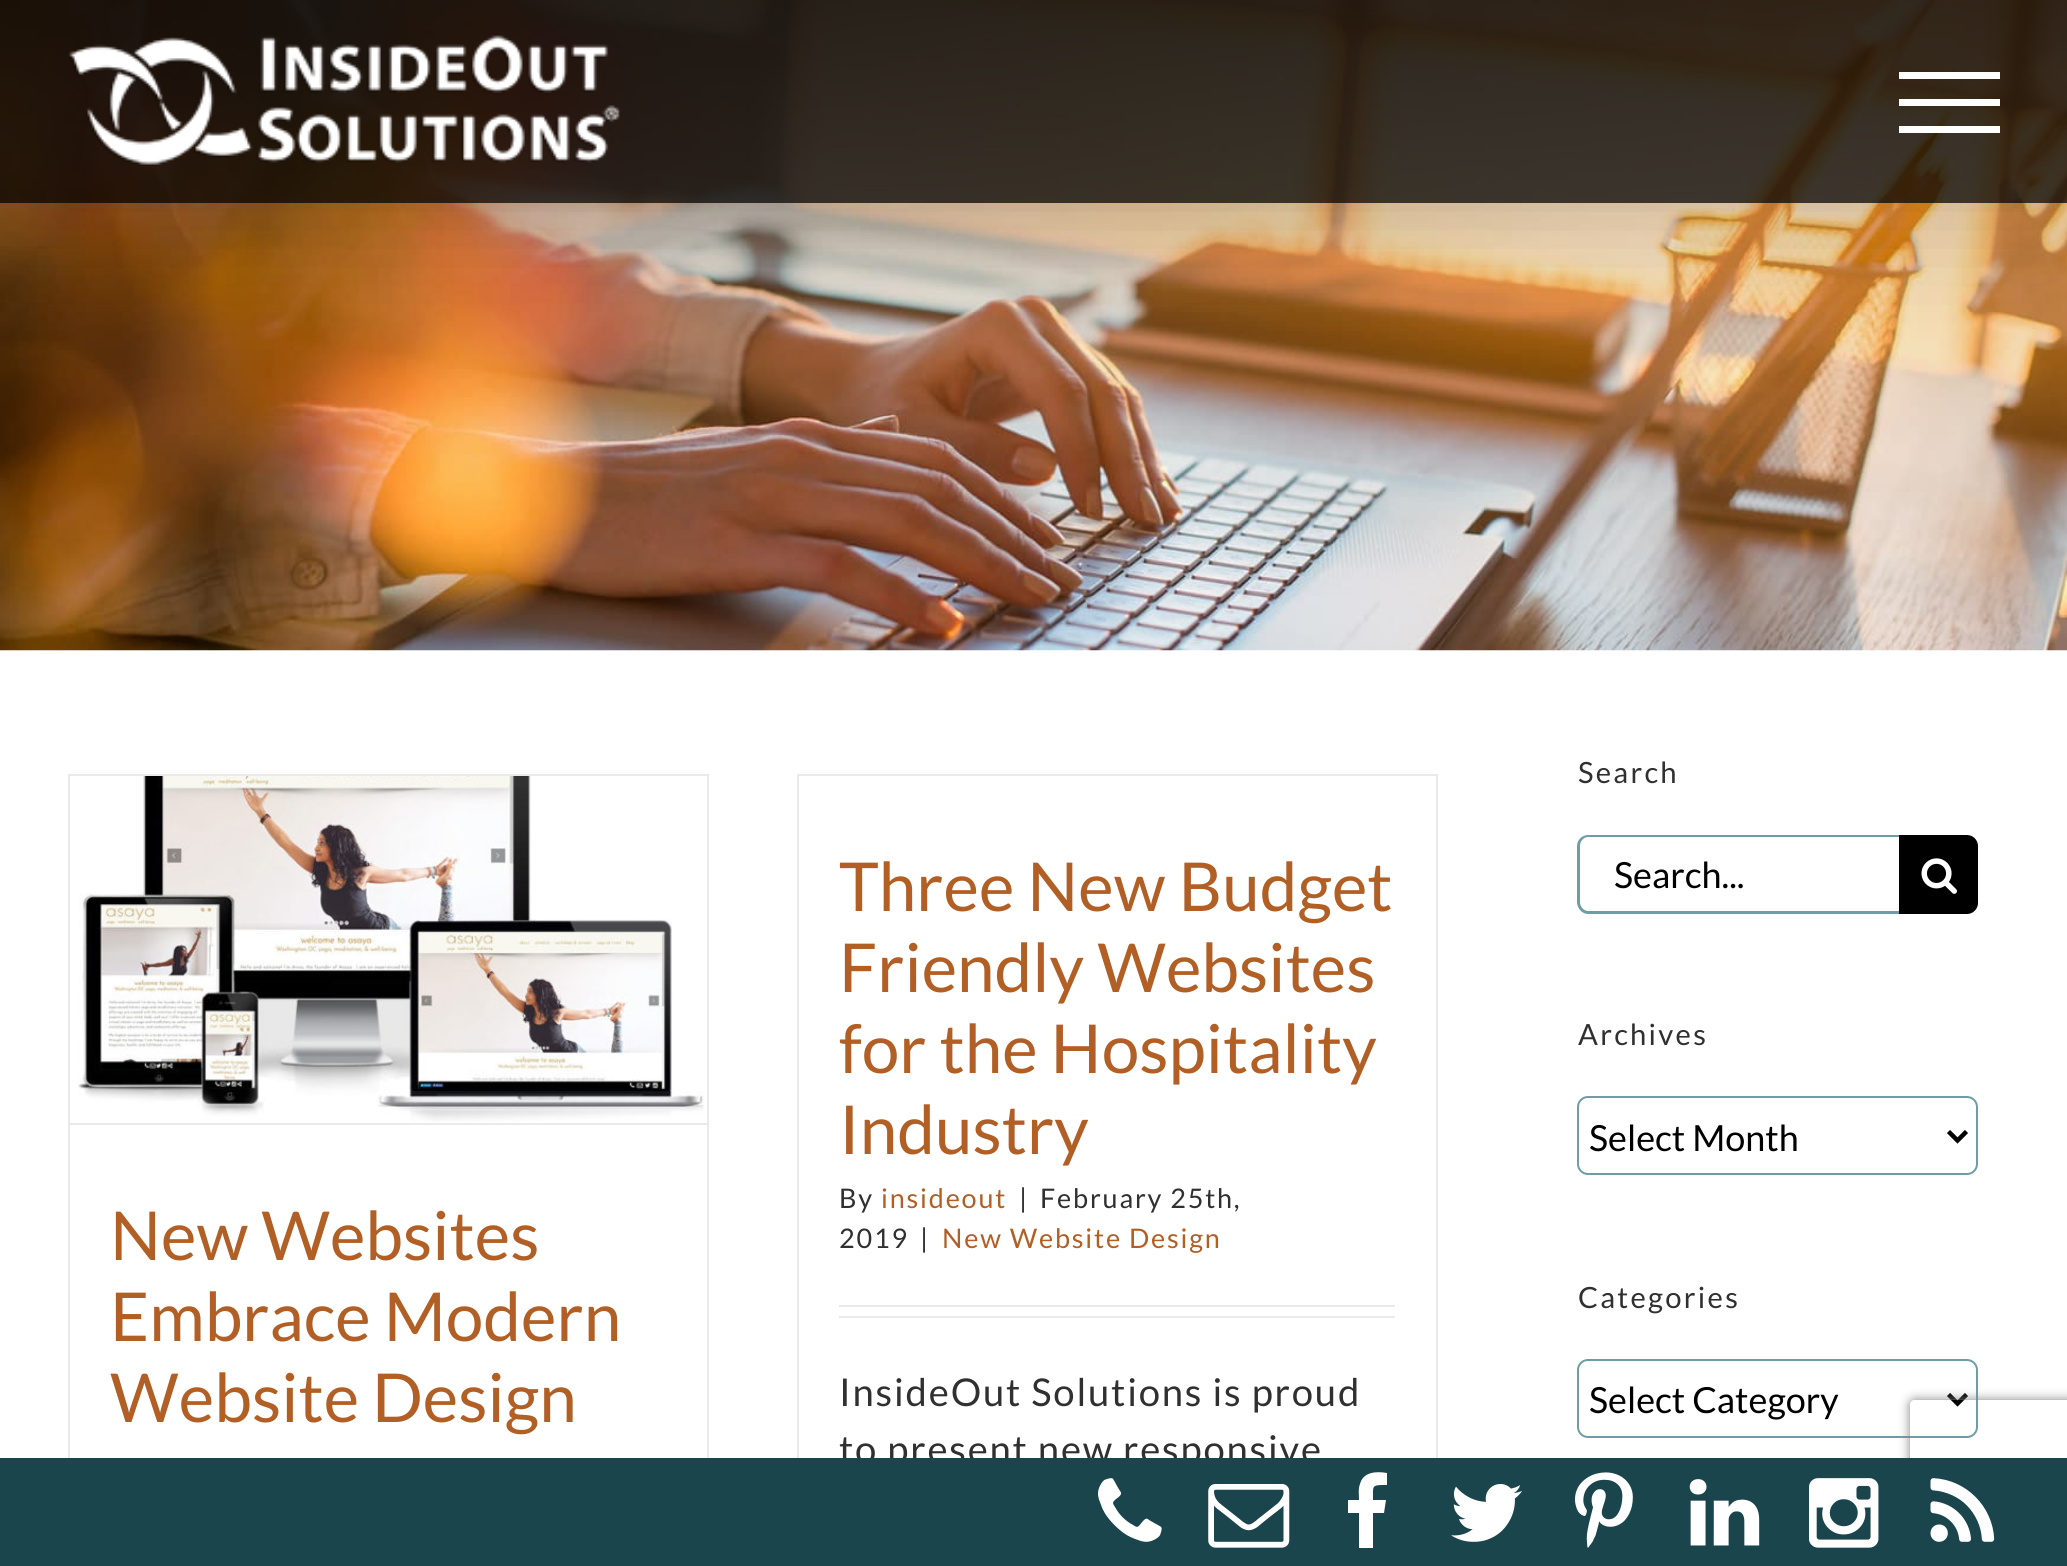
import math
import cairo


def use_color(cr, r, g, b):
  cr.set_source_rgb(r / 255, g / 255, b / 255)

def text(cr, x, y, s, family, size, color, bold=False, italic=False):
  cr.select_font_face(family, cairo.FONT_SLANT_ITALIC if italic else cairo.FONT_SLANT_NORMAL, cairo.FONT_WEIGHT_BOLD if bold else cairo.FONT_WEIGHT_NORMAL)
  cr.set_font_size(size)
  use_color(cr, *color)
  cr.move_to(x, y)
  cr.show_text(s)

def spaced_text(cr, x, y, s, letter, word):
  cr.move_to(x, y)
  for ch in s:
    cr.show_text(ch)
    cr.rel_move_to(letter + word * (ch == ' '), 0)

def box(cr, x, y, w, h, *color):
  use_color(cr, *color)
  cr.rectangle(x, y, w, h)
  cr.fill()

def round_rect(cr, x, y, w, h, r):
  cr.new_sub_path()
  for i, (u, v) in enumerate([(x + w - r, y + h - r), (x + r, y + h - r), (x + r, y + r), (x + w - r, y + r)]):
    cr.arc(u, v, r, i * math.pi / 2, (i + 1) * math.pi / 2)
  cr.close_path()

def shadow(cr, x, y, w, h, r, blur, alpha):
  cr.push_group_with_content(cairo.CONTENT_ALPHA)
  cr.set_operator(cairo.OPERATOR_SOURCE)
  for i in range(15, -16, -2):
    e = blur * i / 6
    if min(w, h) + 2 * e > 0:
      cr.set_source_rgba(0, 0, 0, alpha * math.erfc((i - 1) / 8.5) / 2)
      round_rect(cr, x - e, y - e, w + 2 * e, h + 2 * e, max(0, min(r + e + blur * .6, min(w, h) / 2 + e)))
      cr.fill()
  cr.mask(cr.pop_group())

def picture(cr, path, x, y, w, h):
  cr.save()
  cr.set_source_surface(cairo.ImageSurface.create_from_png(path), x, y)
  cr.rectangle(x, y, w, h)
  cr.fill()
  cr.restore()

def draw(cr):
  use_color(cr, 255, 255, 255)
  cr.paint()
  picture(cr, "img_01.png", 0, 0, 2067, 651)
  cr.save()
  cr.set_fill_rule(cairo.FILL_RULE_EVEN_ODD)
  cr.new_path()
  cr.move_to(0, 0)
  cr.line_to(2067, 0)
  cr.line_to(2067, 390)
  cr.line_to(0, 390)
  cr.close_path()
  cr.move_to(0, 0)
  cr.line_to(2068, 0)
  cr.line_to(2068, 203)
  cr.line_to(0, 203)
  cr.close_path()
  cr.clip()
  use_color(cr, 0, 0, 0)
  shadow(cr, 5, 27, 2058, 194, 0, 56, 0.14)
  cr.restore()
  cr.set_source_rgba(0, 0, 0, 0.75)
  cr.rectangle(0, 0, 2067, 203)
  cr.fill()
  picture(cr, "img_02.png", 69, 35, 551, 131)
  box(cr, 1899, 72, 101, 7, 255, 255, 255)
  box(cr, 1899, 99, 101, 7, 255, 255, 255)
  box(cr, 1899, 126, 101, 7, 255, 255, 255)
  box(cr, 68, 774, 641, 2, 235, 234, 234)
  box(cr, 707, 774, 2, 684, 235, 234, 234)
  box(cr, 68, 774, 2, 684, 235, 234, 234)
  box(cr, 70, 1123, 637, 2, 235, 234, 234)
  picture(cr, "img_03.png", 78, 776, 626, 346)
  box(cr, 797, 774, 641, 2, 235, 234, 234)
  box(cr, 1436, 774, 2, 684, 235, 234, 234)
  box(cr, 797, 774, 2, 684, 235, 234, 234)
  box(cr, 839, 1305, 556, 2, 235, 234, 234)
  box(cr, 839, 1316, 556, 2, 235, 234, 234)
  use_color(cr, 110, 157, 165)
  cr.set_fill_rule(cairo.FILL_RULE_EVEN_ODD)
  cr.new_path()
  cr.move_to(1588, 835)
  cr.line_to(1899, 835)
  cr.line_to(1899, 914)
  cr.line_to(1588, 914)
  cr.curve_to(1582, 914, 1577, 908, 1577, 902)
  cr.line_to(1577, 846)
  cr.curve_to(1577, 840, 1582, 835, 1588, 835)
  cr.close_path()
  cr.move_to(1588, 837)
  cr.line_to(1899, 837)
  cr.line_to(1899, 911)
  cr.line_to(1588, 911)
  cr.curve_to(1584, 911, 1580, 907, 1580, 902)
  cr.line_to(1580, 846)
  cr.curve_to(1580, 841, 1584, 837, 1588, 837)
  cr.close_path()
  cr.fill()
  use_color(cr, 0, 0, 0)
  cr.new_path()
  cr.move_to(1899, 835)
  cr.line_to(1967, 835)
  cr.curve_to(1973, 835, 1978, 840, 1978, 846)
  cr.line_to(1978, 903)
  cr.curve_to(1978, 909, 1973, 914, 1967, 914)
  cr.line_to(1899, 914)
  cr.close_path()
  cr.fill()
  picture(cr, "img_04.png", 1921, 858, 36, 36)
  round_rect(cr, 1578, 1097, 399, 77, 10)
  use_color(cr, 110, 157, 165)
  cr.stroke()
  cr.new_path()
  cr.move_to(1948.5, 1131.5)
  cr.line_to(1957.5, 1140.5)
  cr.line_to(1966.5, 1131.5)
  use_color(cr, 0, 0, 0)
  cr.set_line_width(4.5)
  cr.stroke()
  round_rect(cr, 1578, 1360, 399, 77, 10)
  use_color(cr, 110, 157, 165)
  cr.set_line_width(2)
  cr.stroke()
  cr.new_path()
  cr.move_to(1948.5, 1394.5)
  cr.line_to(1957.5, 1403.5)
  cr.line_to(1966.5, 1394.5)
  use_color(cr, 0, 0, 0)
  cr.set_line_width(4.5)
  cr.stroke()
  cr.save()
  cr.new_path()
  cr.move_to(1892, 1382)
  cr.line_to(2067, 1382)
  cr.line_to(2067, 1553)
  cr.line_to(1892, 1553)
  cr.close_path()
  cr.move_to(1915, 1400)
  cr.line_to(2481, 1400)
  cr.curve_to(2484, 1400, 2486, 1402, 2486, 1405)
  cr.line_to(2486, 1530)
  cr.curve_to(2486, 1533, 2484, 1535, 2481, 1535)
  cr.line_to(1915, 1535)
  cr.curve_to(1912, 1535, 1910, 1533, 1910, 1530)
  cr.line_to(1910, 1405)
  cr.curve_to(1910, 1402, 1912, 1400, 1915, 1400)
  cr.close_path()
  cr.clip()
  use_color(cr, 128, 128, 128)
  shadow(cr, 1910, 1400, 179, 135, 5, 5.5, 1)
  cr.restore()
  text(cr, 110, 1260, "New Websites", "Lato", 67.5, (177, 95, 37))
  text(cr, 110, 1341, "Embrace Modern", "Lato", 67.5, (177, 95, 37))
  text(cr, 110, 1422, "Website Design", "Lato", 67.5, (177, 95, 37))
  text(cr, 839, 911, "Three New Budget", "Lato", 67.5, (177, 95, 37))
  text(cr, 839, 992, "Friendly Websites", "Lato", 67.5, (177, 95, 37))
  text(cr, 839, 1073, "for the Hospitality", "Lato", 67.5, (177, 95, 37))
  text(cr, 839, 1154, "Industry", "Lato", 67.5, (177, 95, 37))
  cr.set_font_size(27)
  use_color(cr, 48, 48, 48)
  spaced_text(cr, 839, 1208, "By", 1.8, 0)
  use_color(cr, 177, 95, 37)
  spaced_text(cr, 881, 1208, "insideout", 1.8, 0)
  use_color(cr, 48, 48, 48)
  spaced_text(cr, 1019, 1208, "|", 1.8, 0)
  spaced_text(cr, 1040, 1208, "February 25th,", 1.8, 0)
  spaced_text(cr, 839, 1248, "2019", 1.8, 0)
  spaced_text(cr, 920, 1248, "|", 1.8, 0)
  use_color(cr, 177, 95, 37)
  spaced_text(cr, 942, 1248, "New Website Design", 1.8, 0)
  cr.set_font_size(38.25)
  use_color(cr, 48, 48, 48)
  spaced_text(cr, 839, 1406, "InsideOut Solutions is proud", 1.8, 0)
  spaced_text(cr, 839, 1463, "to present new responsive", 1.8, 0)
  cr.set_font_size(29.25)
  spaced_text(cr, 1578, 783, "Search", 2.25, 0)
  text(cr, 1614, 888, "Search...", "Lato", 36, (0, 0, 0))
  cr.set_font_size(29.25)
  use_color(cr, 48, 48, 48)
  spaced_text(cr, 1578, 1045, "Archives", 2.25, 0)
  text(cr, 1589, 1151, "Select Month", "Lato", 36, (0, 0, 0))
  cr.set_font_size(29.25)
  use_color(cr, 48, 48, 48)
  spaced_text(cr, 1578, 1308, "Categories", 2.25, 0)
  text(cr, 1589, 1413, "Select Category", "Lato", 36, (0, 0, 0))
  box(cr, 0, 1458, 2067, 108, 26, 69, 76)
  picture(cr, "img_05.png", 1098, 1478, 64, 64)
  picture(cr, "img_06.png", 1208, 1484, 82, 64)
  use_color(cr, 255, 255, 255)
  cr.set_fill_rule(cairo.FILL_RULE_WINDING)
  cr.new_path()
  cr.move_to(1387, 1473)
  cr.line_to(1387, 1485)
  cr.curve_to(1371, 1485, 1373, 1485, 1373, 1500)
  cr.line_to(1386, 1500)
  cr.line_to(1384, 1513)
  cr.line_to(1373, 1513)
  cr.line_to(1373, 1548)
  cr.line_to(1359, 1548)
  cr.line_to(1359, 1513)
  cr.line_to(1348, 1513)
  cr.line_to(1348, 1500)
  cr.line_to(1359, 1500)
  cr.curve_to(1359, 1495, 1358, 1489, 1360, 1484)
  cr.curve_to(1363, 1472, 1376, 1471, 1387, 1473)
  cr.close_path()
  cr.fill()
  picture(cr, "img_07.png", 1451, 1484, 71, 58)
  picture(cr, "img_08.png", 1575, 1472, 58, 76)
  picture(cr, "img_09.png", 1689, 1479, 71, 67)
  picture(cr, "img_10.png", 1809, 1478, 70, 70)
  picture(cr, "img_11.png", 1930, 1478, 65, 64)


surface = cairo.ImageSurface(cairo.FORMAT_RGB24, 2067, 1566)
cr = cairo.Context(surface)
options = cairo.FontOptions()
options.set_hint_metrics(cairo.HINT_METRICS_OFF)
options.set_hint_style(cairo.HINT_STYLE_NONE)
cr.set_font_options(options)
cr.set_miter_limit(4)
draw(cr)
surface.write_to_png("out.png")
